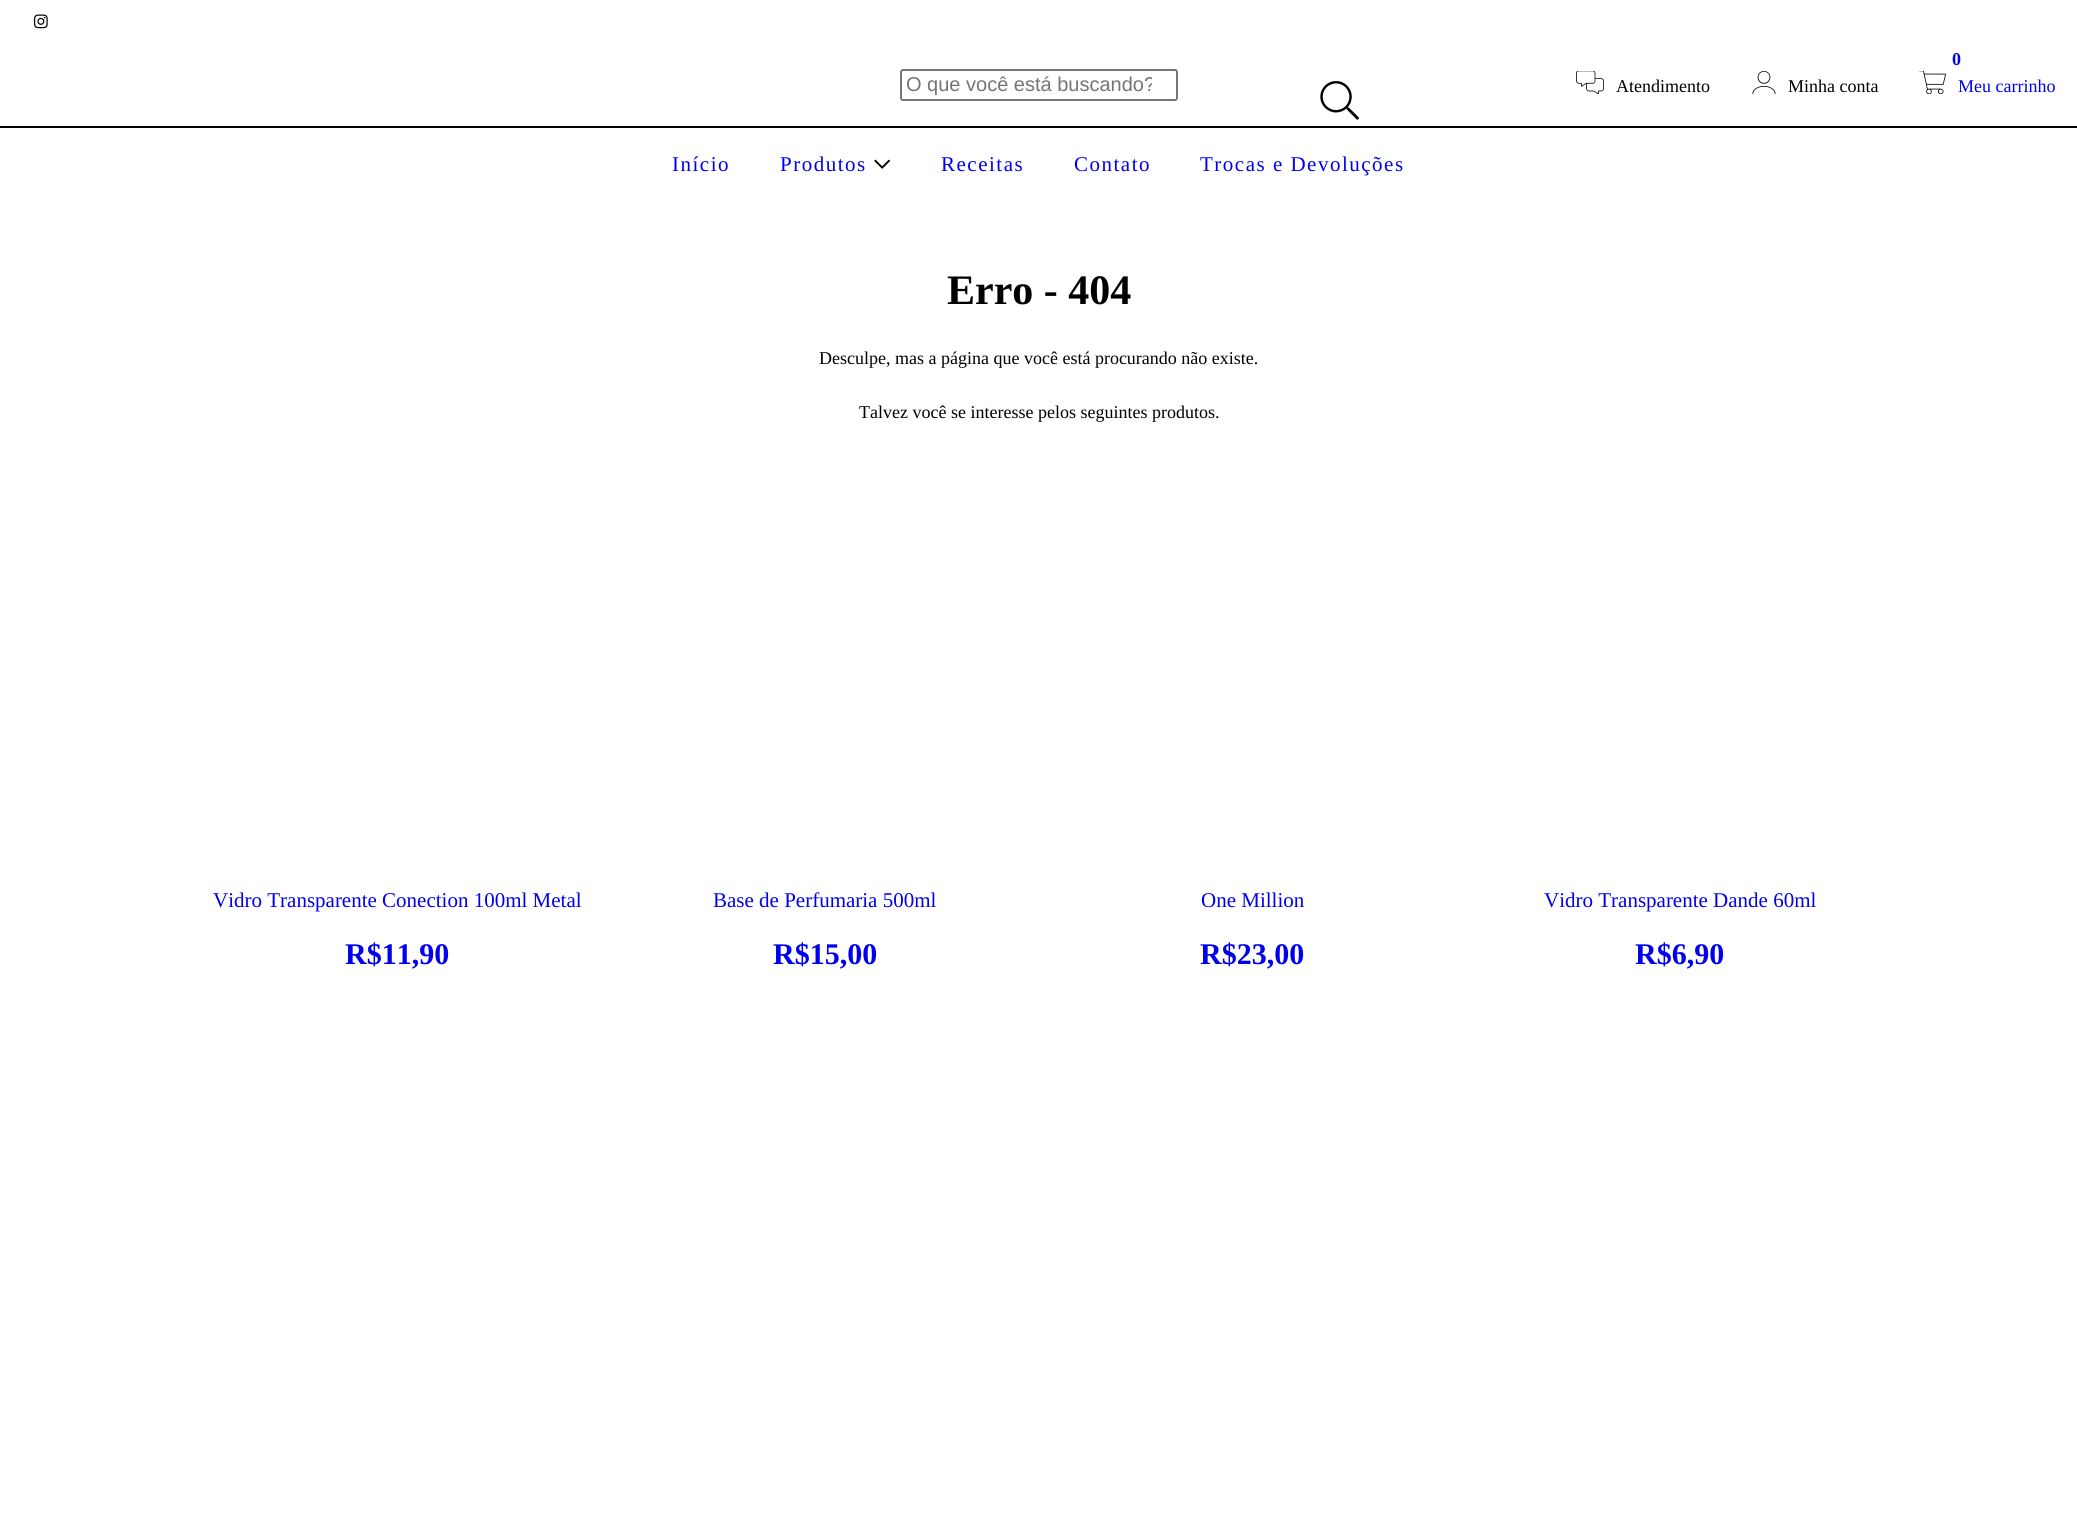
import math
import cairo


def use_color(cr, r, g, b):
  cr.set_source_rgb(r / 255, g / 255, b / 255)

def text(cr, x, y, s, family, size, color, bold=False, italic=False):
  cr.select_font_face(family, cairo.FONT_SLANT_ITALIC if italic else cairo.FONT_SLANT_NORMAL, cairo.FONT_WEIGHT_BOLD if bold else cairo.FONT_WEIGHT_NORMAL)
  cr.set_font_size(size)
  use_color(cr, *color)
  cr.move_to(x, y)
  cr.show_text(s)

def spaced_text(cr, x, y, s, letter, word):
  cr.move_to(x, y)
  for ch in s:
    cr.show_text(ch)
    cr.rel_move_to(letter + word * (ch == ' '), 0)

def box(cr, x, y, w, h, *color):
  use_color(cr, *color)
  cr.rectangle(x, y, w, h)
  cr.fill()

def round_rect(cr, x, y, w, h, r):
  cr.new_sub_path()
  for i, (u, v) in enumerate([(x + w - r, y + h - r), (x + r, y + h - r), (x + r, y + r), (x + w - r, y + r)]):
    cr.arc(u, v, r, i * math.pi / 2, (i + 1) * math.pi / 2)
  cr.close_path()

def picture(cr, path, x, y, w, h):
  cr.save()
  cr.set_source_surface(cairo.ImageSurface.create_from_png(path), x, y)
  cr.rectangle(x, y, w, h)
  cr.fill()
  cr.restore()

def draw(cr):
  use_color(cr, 255, 255, 255)
  cr.paint()
  picture(cr, "img_01.png", 34, 14, 14, 15)
  round_rect(cr, 901, 70, 276, 30, 2)
  use_color(cr, 118, 118, 118)
  cr.stroke()
  picture(cr, "img_02.png", 1320, 81, 39, 39)
  picture(cr, "img_03.png", 1576, 71, 28, 23)
  picture(cr, "img_04.png", 1752, 71, 24, 23)
  picture(cr, "img_05.png", 1919, 71, 27, 23)
  box(cr, 0, 126, 2077, 2, 0, 0, 0)
  picture(cr, "img_06.png", 874, 159, 17, 10)
  cr.save()
  cr.rectangle(906, 74, 246, 22)
  cr.clip()
  text(cr, 906, 91, "O que você está buscando?", "Liberation Sans", 20, (117, 117, 117))
  cr.restore()
  text(cr, 1616, 92, "Atendimento", "Liberation Serif", 18, (0, 0, 0))
  text(cr, 1788, 92, "Minha conta", "Liberation Serif", 18, (0, 0, 0))
  text(cr, 1952, 65, "0", "Liberation Serif", 18, (0, 0, 238), bold=True)
  text(cr, 1958, 92, "Meu carrinho", "Liberation Serif", 18, (0, 0, 238))
  cr.set_font_size(21)
  spaced_text(cr, 672, 171, "Início", 1.5, 0)
  spaced_text(cr, 780, 171, "Produtos", 1.5, 0)
  spaced_text(cr, 941, 171, "Receitas", 1.5, 0)
  spaced_text(cr, 1074, 171, "Contato", 1.5, 0)
  spaced_text(cr, 1200, 171, "Trocas e Devoluções", 1.5, 0)
  text(cr, 947, 304, "Erro - 404", "Liberation Serif", 42, (0, 0, 0), bold=True)
  text(cr, 819, 364, "Desculpe, mas a página que você está procurando não existe.", "Liberation Serif", 18, (0, 0, 0))
  text(cr, 859, 418, "Talvez você se interesse pelos seguintes produtos.", "Liberation Serif", 18, (0, 0, 0))
  text(cr, 213, 907, "Vidro Transparente Conection 100ml Metal", "Liberation Serif", 21, (0, 0, 238))
  text(cr, 345, 964, "R$11,90", "Liberation Serif", 30, (0, 0, 238), bold=True)
  text(cr, 713, 907, "Base de Perfumaria 500ml", "Liberation Serif", 21, (0, 0, 238))
  text(cr, 773, 964, "R$15,00", "Liberation Serif", 30, (0, 0, 238), bold=True)
  text(cr, 1201, 907, "One Million", "Liberation Serif", 21, (0, 0, 238))
  text(cr, 1200, 964, "R$23,00", "Liberation Serif", 30, (0, 0, 238), bold=True)
  text(cr, 1544, 907, "Vidro Transparente Dande 60ml", "Liberation Serif", 21, (0, 0, 238))
  text(cr, 1635, 964, "R$6,90", "Liberation Serif", 30, (0, 0, 238), bold=True)


surface = cairo.ImageSurface(cairo.FORMAT_RGB24, 2077, 1539)
cr = cairo.Context(surface)
options = cairo.FontOptions()
options.set_hint_metrics(cairo.HINT_METRICS_OFF)
options.set_hint_style(cairo.HINT_STYLE_NONE)
cr.set_font_options(options)
cr.set_miter_limit(4)
draw(cr)
surface.write_to_png("out.png")
